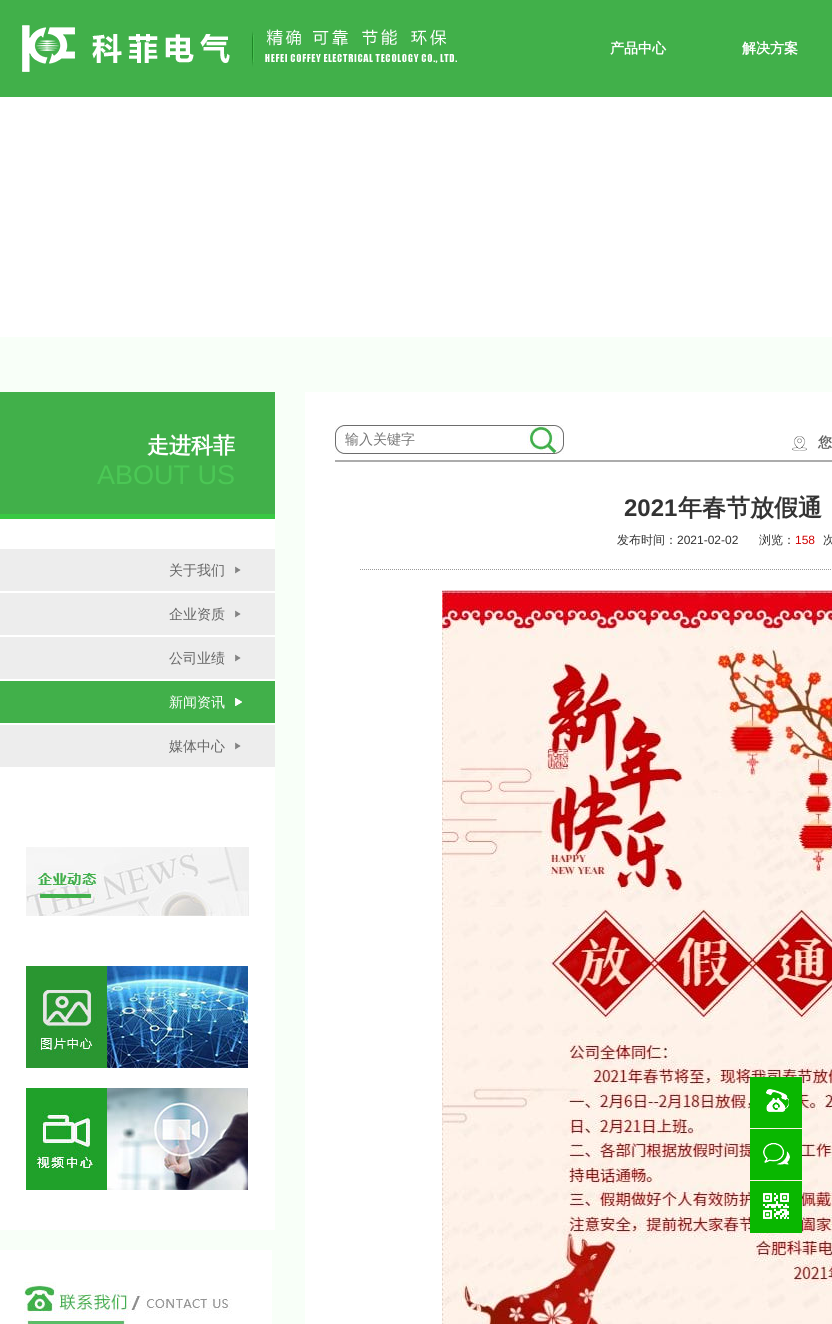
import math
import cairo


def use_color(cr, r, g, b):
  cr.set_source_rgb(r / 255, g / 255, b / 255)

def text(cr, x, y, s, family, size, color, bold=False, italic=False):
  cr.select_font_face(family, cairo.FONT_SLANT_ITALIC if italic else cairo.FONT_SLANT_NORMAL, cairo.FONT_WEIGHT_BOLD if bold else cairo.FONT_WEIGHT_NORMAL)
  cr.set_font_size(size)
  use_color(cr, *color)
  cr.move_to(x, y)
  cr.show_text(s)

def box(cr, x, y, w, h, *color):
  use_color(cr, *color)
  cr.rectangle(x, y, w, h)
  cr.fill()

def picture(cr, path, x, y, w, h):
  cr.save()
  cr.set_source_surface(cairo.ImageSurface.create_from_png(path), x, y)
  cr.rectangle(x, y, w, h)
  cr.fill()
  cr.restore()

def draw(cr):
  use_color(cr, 255, 255, 255)
  cr.paint()
  box(cr, 0, 0, 832, 97, 65, 176, 74)
  picture(cr, "img_01.png", 22, 25, 435, 47)
  box(cr, 0, 337, 832, 987, 248, 255, 248)
  box(cr, 0, 519, 275, 711, 255, 255, 255)
  box(cr, 0, 392, 275, 122, 65, 176, 74)
  box(cr, 0, 514, 275, 5, 56, 201, 67)
  box(cr, 0, 549, 275, 42, 237, 237, 237)
  picture(cr, "img_02.png", 235, 566, 6, 8)
  box(cr, 0, 593, 275, 42, 237, 237, 237)
  picture(cr, "img_02.png", 235, 610, 6, 8)
  box(cr, 0, 637, 275, 42, 237, 237, 237)
  picture(cr, "img_02.png", 235, 654, 6, 8)
  box(cr, 0, 681, 275, 42, 65, 176, 74)
  picture(cr, "img_03.png", 235, 698, 7, 8)
  box(cr, 0, 725, 275, 42, 237, 237, 237)
  picture(cr, "img_02.png", 235, 742, 6, 8)
  picture(cr, "img_04.png", 26, 847, 223, 69)
  picture(cr, "img_05.png", 26, 966, 81, 102)
  picture(cr, "img_06.png", 107, 966, 141, 102)
  picture(cr, "img_07.png", 26, 1088, 81, 102)
  picture(cr, "img_08.png", 107, 1088, 141, 102)
  picture(cr, "img_09.png", 0, 1250, 272, 74)
  box(cr, 305, 392, 527, 932, 255, 255, 255)
  box(cr, 335, 460, 497, 2, 172, 172, 172)
  picture(cr, "img_10.png", 335, 425, 229, 29)
  picture(cr, "img_11.png", 792, 436, 15, 15)
  cr.new_path()
  cr.move_to(360, 569.5)
  cr.line_to(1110, 569.5)
  use_color(cr, 153, 153, 153)
  cr.set_line_width(1)
  cr.set_dash([1, 1])
  cr.stroke()
  picture(cr, "img_12.png", 442, 590, 390, 734)
  picture(cr, "img_13.png", 750, 1077, 52, 51)
  picture(cr, "img_14.png", 750, 1129, 52, 51)
  picture(cr, "img_15.png", 750, 1181, 52, 52)
  text(cr, 610, 53, "产品中心", "WenQuanYi Zen Hei", 14, (255, 255, 255), bold=True)
  text(cr, 742, 53, "解决方案", "WenQuanYi Zen Hei", 14, (255, 255, 255), bold=True)
  text(cr, 147, 453, "走进科菲", "WenQuanYi Zen Hei", 22, (255, 255, 255), bold=True)
  text(cr, 97, 484, "ABOUT US", "Liberation Sans", 27, (75, 199, 85))
  text(cr, 169, 575, "关于我们", "WenQuanYi Zen Hei Medium", 14, (101, 101, 101))
  text(cr, 169, 619, "企业资质", "WenQuanYi Zen Hei Medium", 14, (101, 101, 101))
  text(cr, 169, 663, "公司业绩", "WenQuanYi Zen Hei Medium", 14, (101, 101, 101))
  text(cr, 169, 707, "新闻资讯", "WenQuanYi Zen Hei Medium", 14, (255, 255, 255))
  text(cr, 169, 751, "媒体中心", "WenQuanYi Zen Hei Medium", 14, (101, 101, 101))
  text(cr, 345, 444, "输入关键字", "WenQuanYi Zen Hei Medium", 14, (117, 117, 117))
  text(cr, 818, 447, "您", "WenQuanYi Zen Hei", 14, (101, 101, 101), bold=True)
  text(cr, 624, 516, "2021", "Liberation Sans", 24, (51, 51, 51), bold=True)
  text(cr, 678, 516, "年春节放假通", "WenQuanYi Zen Hei", 24, (51, 51, 51), bold=True)
  text(cr, 617, 544, "发布时间：", "WenQuanYi Zen Hei Medium", 12, (51, 51, 51))
  text(cr, 677, 544, "2021-02-02", "Liberation Sans", 12, (51, 51, 51))
  text(cr, 759, 544, "浏览：", "WenQuanYi Zen Hei Medium", 12, (51, 51, 51))
  text(cr, 795, 544, "158", "Liberation Sans", 12, (208, 0, 0))
  text(cr, 823, 544, "次", "WenQuanYi Zen Hei Medium", 12, (51, 51, 51))


surface = cairo.ImageSurface(cairo.FORMAT_RGB24, 832, 1324)
cr = cairo.Context(surface)
options = cairo.FontOptions()
options.set_hint_metrics(cairo.HINT_METRICS_OFF)
options.set_hint_style(cairo.HINT_STYLE_NONE)
cr.set_font_options(options)
cr.set_miter_limit(4)
draw(cr)
surface.write_to_png("out.png")
